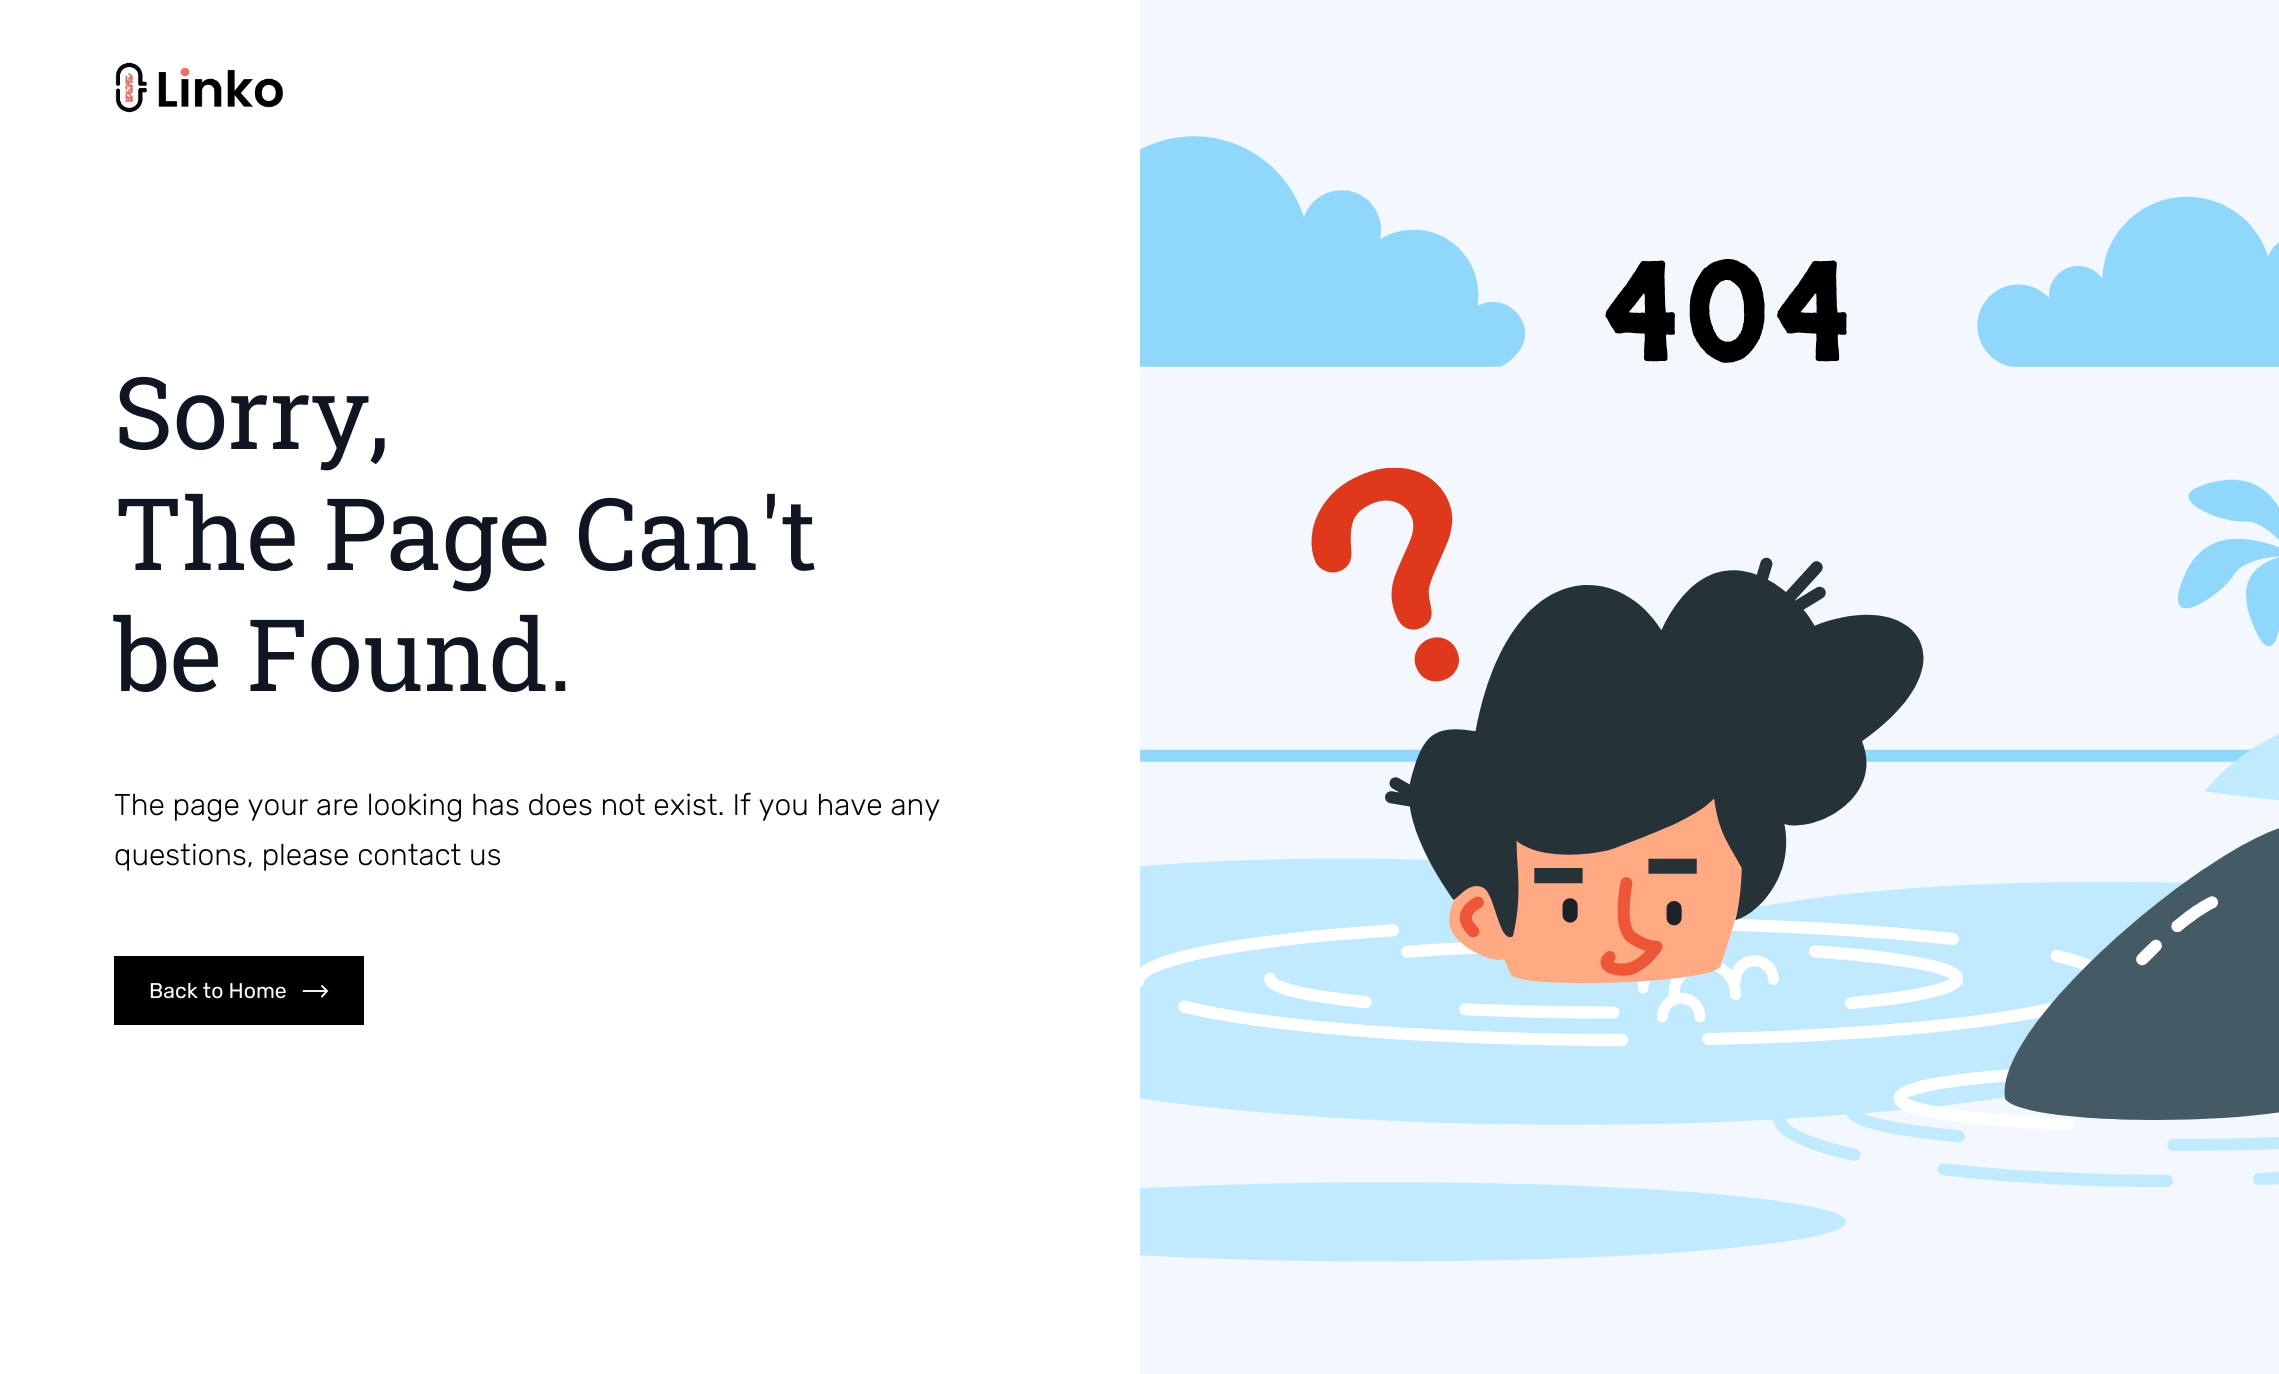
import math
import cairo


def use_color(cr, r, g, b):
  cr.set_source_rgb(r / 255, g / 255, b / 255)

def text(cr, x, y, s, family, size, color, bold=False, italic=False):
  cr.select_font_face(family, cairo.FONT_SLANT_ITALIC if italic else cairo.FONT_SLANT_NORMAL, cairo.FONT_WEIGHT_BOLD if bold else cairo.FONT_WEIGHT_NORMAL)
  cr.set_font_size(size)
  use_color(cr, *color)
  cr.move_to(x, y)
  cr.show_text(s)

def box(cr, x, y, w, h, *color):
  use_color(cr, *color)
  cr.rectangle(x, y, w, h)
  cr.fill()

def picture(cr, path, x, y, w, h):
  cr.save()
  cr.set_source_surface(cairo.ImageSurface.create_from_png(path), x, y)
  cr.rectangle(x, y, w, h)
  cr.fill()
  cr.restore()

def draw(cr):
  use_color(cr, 255, 255, 255)
  cr.paint()
  picture(cr, "img_01.png", 115, 62, 168, 51)
  box(cr, 114, 956, 250, 69, 0, 0, 0)
  cr.new_path()
  cr.move_to(303.5, 991)
  cr.line_to(325, 991)
  cr.move_to(322, 986)
  cr.line_to(327, 991)
  cr.line_to(322, 996.5)
  use_color(cr, 255, 255, 255)
  cr.set_line_width(1.9)
  cr.set_line_cap(cairo.LINE_CAP_ROUND)
  cr.stroke()
  picture(cr, "img_02.png", 1140, 0, 1139, 1374)
  picture(cr, "img_03.png", 1311, 468, 148, 214)
  text(cr, 114, 449, "Sorry,", "Roboto Slab", 100, (16, 22, 33))
  text(cr, 114, 570, "The Page Can't", "Roboto Slab", 100, (16, 22, 33))
  text(cr, 114, 691, "be Found.", "Roboto Slab", 100, (16, 22, 33))
  text(cr, 114, 815, "The page your are looking has does not exist. If you have any", "Rubik Light", 30, (0, 0, 0))
  text(cr, 114, 865, "questions, please contact us", "Rubik Light", 30, (0, 0, 0))
  text(cr, 149, 998, "Back to Home", "Rubik", 21.25, (255, 255, 255))


surface = cairo.ImageSurface(cairo.FORMAT_RGB24, 2279, 1374)
cr = cairo.Context(surface)
options = cairo.FontOptions()
options.set_hint_metrics(cairo.HINT_METRICS_OFF)
options.set_hint_style(cairo.HINT_STYLE_NONE)
cr.set_font_options(options)
cr.set_miter_limit(4)
draw(cr)
surface.write_to_png("out.png")
